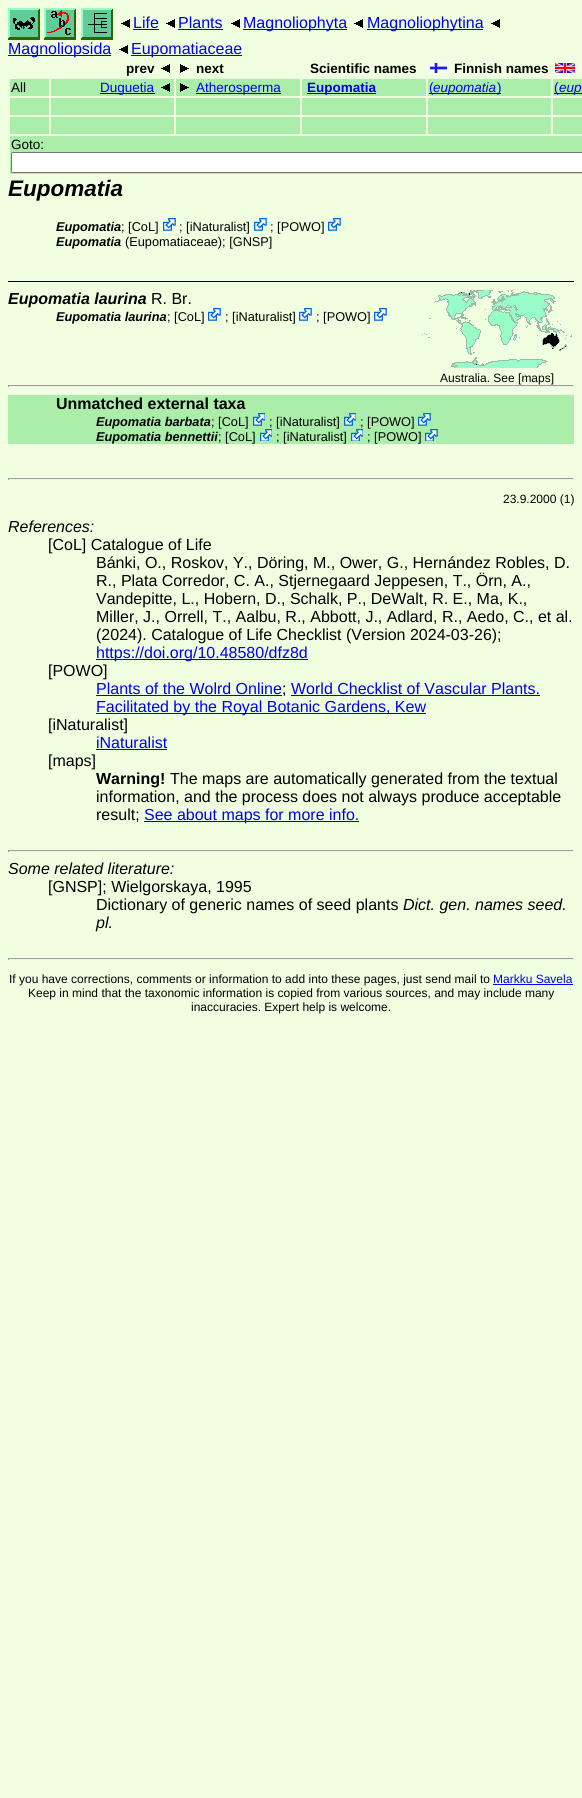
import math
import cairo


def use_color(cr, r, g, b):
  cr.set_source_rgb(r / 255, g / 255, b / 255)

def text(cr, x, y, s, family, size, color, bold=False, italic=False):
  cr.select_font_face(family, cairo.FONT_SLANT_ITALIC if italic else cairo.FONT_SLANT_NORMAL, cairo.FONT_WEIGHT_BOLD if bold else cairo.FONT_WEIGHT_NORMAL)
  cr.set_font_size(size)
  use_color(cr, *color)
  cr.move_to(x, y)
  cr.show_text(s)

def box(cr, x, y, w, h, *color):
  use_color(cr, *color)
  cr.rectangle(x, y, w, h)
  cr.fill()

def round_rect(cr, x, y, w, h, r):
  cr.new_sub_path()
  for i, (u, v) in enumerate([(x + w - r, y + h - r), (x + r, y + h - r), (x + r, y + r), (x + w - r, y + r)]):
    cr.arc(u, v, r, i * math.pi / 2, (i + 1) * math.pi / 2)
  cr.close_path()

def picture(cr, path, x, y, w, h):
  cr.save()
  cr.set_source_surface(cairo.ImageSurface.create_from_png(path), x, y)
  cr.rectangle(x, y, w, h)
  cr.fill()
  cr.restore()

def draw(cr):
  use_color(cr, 240, 255, 224)
  cr.paint()
  picture(cr, "img_01.png", 8, 8, 32, 32)
  picture(cr, "img_02.png", 44, 8, 32, 32)
  picture(cr, "img_03.png", 81, 8, 32, 32)
  picture(cr, "img_04.png", 121, 19, 9, 9)
  box(cr, 133, 29, 26, 1, 0, 0, 238)
  picture(cr, "img_04.png", 166, 19, 9, 9)
  box(cr, 178, 29, 45, 1, 0, 0, 238)
  picture(cr, "img_04.png", 231, 19, 9, 9)
  box(cr, 243, 29, 104, 1, 0, 0, 238)
  picture(cr, "img_04.png", 354, 19, 9, 9)
  box(cr, 367, 29, 116, 1, 0, 0, 238)
  picture(cr, "img_04.png", 491, 19, 9, 9)
  box(cr, 8, 55, 103, 1, 0, 0, 238)
  picture(cr, "img_04.png", 119, 45, 9, 9)
  box(cr, 131, 55, 111, 1, 0, 0, 238)
  picture(cr, "img_04.png", 161, 64, 9, 9)
  picture(cr, "img_05.png", 180, 64, 9, 9)
  picture(cr, "img_06.png", 430, 63, 17, 10)
  picture(cr, "img_07.png", 555, 63, 20, 10)
  box(cr, 10, 79, 39, 17, 170, 238, 170)
  box(cr, 51, 79, 123, 17, 170, 238, 170)
  box(cr, 100, 93, 55, 1, 0, 0, 238)
  picture(cr, "img_08.png", 161, 83, 9, 9)
  box(cr, 176, 79, 124, 17, 170, 238, 170)
  picture(cr, "img_09.png", 180, 83, 9, 9)
  box(cr, 196, 93, 85, 1, 0, 0, 238)
  box(cr, 302, 79, 124, 17, 170, 238, 170)
  box(cr, 307, 93, 69, 1, 0, 0, 238)
  box(cr, 428, 79, 123, 17, 170, 238, 170)
  box(cr, 429, 93, 4, 1, 0, 0, 238)
  box(cr, 433, 93, 68, 1, 0, 0, 238)
  box(cr, 553, 79, 29, 17, 170, 238, 170)
  box(cr, 554, 93, 28, 1, 0, 0, 238)
  box(cr, 10, 98, 39, 17, 170, 238, 170)
  box(cr, 51, 98, 123, 17, 170, 238, 170)
  box(cr, 176, 98, 124, 17, 170, 238, 170)
  box(cr, 302, 98, 124, 17, 170, 238, 170)
  box(cr, 428, 98, 123, 17, 170, 238, 170)
  box(cr, 553, 98, 29, 17, 170, 238, 170)
  box(cr, 10, 117, 39, 17, 170, 238, 170)
  box(cr, 51, 117, 123, 17, 170, 238, 170)
  box(cr, 176, 117, 124, 17, 170, 238, 170)
  box(cr, 302, 117, 124, 17, 170, 238, 170)
  box(cr, 428, 117, 123, 17, 170, 238, 170)
  box(cr, 553, 117, 29, 17, 170, 238, 170)
  box(cr, 10, 136, 572, 38, 170, 238, 170)
  use_color(cr, 255, 255, 255)
  round_rect(cr, 11.5, 152.5, 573, 20, 1.5)
  cr.fill_preserve()
  use_color(cr, 118, 118, 118)
  cr.set_line_width(1)
  cr.stroke()
  picture(cr, "img_10.png", 163, 218, 13, 13)
  picture(cr, "img_10.png", 254, 218, 13, 13)
  picture(cr, "img_10.png", 328, 218, 13, 13)
  box(cr, 8, 281, 566, 1, 0, 0, 0)
  picture(cr, "img_10.png", 208, 308, 13, 13)
  picture(cr, "img_10.png", 299, 308, 13, 13)
  picture(cr, "img_10.png", 374, 308, 13, 13)
  picture(cr, "img_11.png", 422, 290, 150, 78)
  box(cr, 8, 385, 566, 1, 159, 159, 159)
  box(cr, 573, 385, 1, 2, 238, 238, 238)
  box(cr, 8, 386, 566, 1, 238, 238, 238)
  box(cr, 8, 385, 1, 2, 159, 159, 159)
  box(cr, 8, 395, 566, 49, 170, 238, 170)
  picture(cr, "img_12.png", 253, 413, 12, 13)
  picture(cr, "img_12.png", 344, 413, 12, 13)
  picture(cr, "img_13.png", 418, 413, 13, 13)
  picture(cr, "img_14.png", 260, 429, 12, 12)
  picture(cr, "img_14.png", 351, 429, 12, 12)
  picture(cr, "img_15.png", 425, 429, 13, 12)
  box(cr, 8, 478, 566, 1, 159, 159, 159)
  box(cr, 573, 478, 1, 2, 238, 238, 238)
  box(cr, 8, 479, 566, 1, 238, 238, 238)
  box(cr, 8, 478, 1, 2, 159, 159, 159)
  box(cr, 96, 659, 212, 1, 0, 0, 238)
  box(cr, 96, 695, 186, 1, 0, 0, 238)
  box(cr, 291, 695, 249, 1, 0, 0, 238)
  box(cr, 96, 713, 330, 1, 0, 0, 238)
  box(cr, 96, 749, 71, 1, 0, 0, 238)
  box(cr, 144, 821, 215, 1, 0, 0, 238)
  box(cr, 8, 850, 566, 1, 159, 159, 159)
  box(cr, 573, 850, 1, 2, 238, 238, 238)
  box(cr, 8, 851, 566, 1, 238, 238, 238)
  box(cr, 8, 850, 1, 2, 159, 159, 159)
  box(cr, 8, 958, 566, 1, 159, 159, 159)
  box(cr, 573, 958, 1, 2, 238, 238, 238)
  box(cr, 8, 959, 566, 1, 238, 238, 238)
  box(cr, 8, 958, 1, 2, 159, 159, 159)
  box(cr, 493, 984, 80, 1, 0, 0, 238)
  text(cr, 133, 28, "Life", "Liberation Sans", 16, (0, 0, 238))
  text(cr, 178, 28, "Plants", "Liberation Sans", 16, (0, 0, 238))
  text(cr, 243, 28, "Magnoliophyta", "Liberation Sans", 16, (0, 0, 238))
  text(cr, 367, 28, "Magnoliophytina", "Liberation Sans", 16, (0, 0, 238))
  text(cr, 8, 54, "Magnoliopsida", "Liberation Sans", 16, (0, 0, 238))
  text(cr, 131, 54, "Eupomatiaceae", "Liberation Sans", 16, (0, 0, 238))
  text(cr, 126, 73, "prev", "Liberation Sans", 13.5, (0, 0, 0), bold=True)
  text(cr, 196, 73, "next", "Liberation Sans", 13.5, (0, 0, 0), bold=True)
  text(cr, 310, 73, "Scientific names", "Liberation Sans", 13.5, (0, 0, 0), bold=True)
  text(cr, 454, 73, "Finnish names", "Liberation Sans", 13.5, (0, 0, 0), bold=True)
  text(cr, 11, 92, "All", "Liberation Sans", 13.5, (0, 0, 0))
  text(cr, 100, 92, "Duguetia", "Liberation Sans", 13.5, (0, 0, 238))
  text(cr, 196, 92, "Atherosperma", "Liberation Sans", 13.5, (0, 0, 238))
  text(cr, 307, 92, "Eupomatia", "Liberation Sans", 13.5, (0, 0, 238), bold=True)
  text(cr, 429, 92, "(", "Liberation Sans", 13.5, (0, 0, 238))
  text(cr, 433, 92, "eupomatia", "Liberation Sans", 13.5, (0, 0, 238), italic=True)
  text(cr, 497, 92, ")", "Liberation Sans", 13.5, (0, 0, 238))
  text(cr, 554, 92, "(", "Liberation Sans", 13.5, (0, 0, 238))
  text(cr, 559, 92, "eup", "Liberation Sans", 13.5, (0, 0, 238), italic=True)
  text(cr, 11, 149, "Goto:", "Liberation Sans", 13.5, (0, 0, 0))
  text(cr, 8, 196, "Eupomatia", "Liberation Sans", 22.5, (0, 0, 0), bold=True, italic=True)
  text(cr, 56, 231, "Eupomatia", "Liberation Sans", 12.75, (0, 0, 0), bold=True, italic=True)
  text(cr, 121, 231, "; [CoL]", "Liberation Sans", 12.75, (0, 0, 0))
  text(cr, 179, 231, "; [iNaturalist]", "Liberation Sans", 12.75, (0, 0, 0))
  text(cr, 270, 231, "; [POWO]", "Liberation Sans", 12.75, (0, 0, 0))
  text(cr, 56, 246, "Eupomatia", "Liberation Sans", 12.75, (0, 0, 0), bold=True, italic=True)
  text(cr, 125, 246, "(Eupomatiaceae); [GNSP]", "Liberation Sans", 12.75, (0, 0, 0))
  text(cr, 8, 304, "Eupomatia laurina", "Liberation Sans", 16, (0, 0, 0), bold=True, italic=True)
  text(cr, 151, 304, "R. Br.", "Liberation Sans", 16, (0, 0, 0))
  text(cr, 56, 321, "Eupomatia laurina", "Liberation Sans", 12.75, (0, 0, 0), bold=True, italic=True)
  text(cr, 167, 321, "; [CoL]", "Liberation Sans", 12.75, (0, 0, 0))
  text(cr, 225, 321, "; [iNaturalist]", "Liberation Sans", 12.75, (0, 0, 0))
  text(cr, 316, 321, "; [POWO]", "Liberation Sans", 12.75, (0, 0, 0))
  text(cr, 440, 382, "Australia. See [maps]", "Liberation Sans", 12, (0, 0, 0))
  text(cr, 56, 409, "Unmatched external taxa", "Liberation Sans", 16, (0, 0, 0), bold=True)
  text(cr, 96, 426, "Eupomatia barbata", "Liberation Sans", 12.75, (0, 0, 0), bold=True, italic=True)
  text(cr, 211, 426, "; [CoL]", "Liberation Sans", 12.75, (0, 0, 0))
  text(cr, 269, 426, "; [iNaturalist]", "Liberation Sans", 12.75, (0, 0, 0))
  text(cr, 360, 426, "; [POWO]", "Liberation Sans", 12.75, (0, 0, 0))
  text(cr, 96, 441, "Eupomatia bennettii", "Liberation Sans", 12.75, (0, 0, 0), bold=True, italic=True)
  text(cr, 218, 441, "; [CoL]", "Liberation Sans", 12.75, (0, 0, 0))
  text(cr, 276, 441, "; [iNaturalist]", "Liberation Sans", 12.75, (0, 0, 0))
  text(cr, 367, 441, "; [POWO]", "Liberation Sans", 12.75, (0, 0, 0))
  text(cr, 503, 503, "23.9.2000 (1)", "Liberation Sans", 12, (0, 0, 0))
  text(cr, 8, 532, "References:", "Liberation Sans", 16, (0, 0, 0), italic=True)
  text(cr, 48, 550, "[CoL] Catalogue of Life", "Liberation Sans", 16, (0, 0, 0))
  text(cr, 96, 568, "Bánki, O., Roskov, Y., Döring, M., Ower, G., Hernández Robles, D.", "Liberation Sans", 16, (0, 0, 0))
  text(cr, 96, 586, "R., Plata Corredor, C. A., Stjernegaard Jeppesen, T., Örn, A.,", "Liberation Sans", 16, (0, 0, 0))
  text(cr, 96, 604, "Vandepitte, L., Hobern, D., Schalk, P., DeWalt, R. E., Ma, K.,", "Liberation Sans", 16, (0, 0, 0))
  text(cr, 96, 622, "Miller, J., Orrell, T., Aalbu, R., Abbott, J., Adlard, R., Aedo, C., et al.", "Liberation Sans", 16, (0, 0, 0))
  text(cr, 96, 640, "(2024). Catalogue of Life Checklist (Version 2024-03-26);", "Liberation Sans", 16, (0, 0, 0))
  text(cr, 96, 658, "https://doi.org/10.48580/dfz8d", "Liberation Sans", 16, (0, 0, 238))
  text(cr, 48, 676, "[POWO]", "Liberation Sans", 16, (0, 0, 0))
  text(cr, 96, 694, "Plants of the Wolrd Online", "Liberation Sans", 16, (0, 0, 238))
  text(cr, 282, 694, ";", "Liberation Sans", 16, (0, 0, 0))
  text(cr, 291, 694, "World Checklist of Vascular Plants.", "Liberation Sans", 16, (0, 0, 238))
  text(cr, 96, 712, "Facilitated by the Royal Botanic Gardens, Kew", "Liberation Sans", 16, (0, 0, 238))
  text(cr, 48, 730, "[iNaturalist]", "Liberation Sans", 16, (0, 0, 0))
  text(cr, 96, 748, "iNaturalist", "Liberation Sans", 16, (0, 0, 238))
  text(cr, 48, 766, "[maps]", "Liberation Sans", 16, (0, 0, 0))
  text(cr, 96, 784, "Warning!", "Liberation Sans", 16, (0, 0, 0), bold=True)
  text(cr, 170, 784, "The maps are automatically generated from the textual", "Liberation Sans", 16, (0, 0, 0))
  text(cr, 96, 802, "information, and the process does not always produce acceptable", "Liberation Sans", 16, (0, 0, 0))
  text(cr, 96, 820, "result;", "Liberation Sans", 16, (0, 0, 0))
  text(cr, 144, 820, "See about maps for more info.", "Liberation Sans", 16, (0, 0, 238))
  text(cr, 8, 874, "Some related literature:", "Liberation Sans", 16, (0, 0, 0), italic=True)
  text(cr, 48, 892, "[GNSP]; Wielgorskaya, 1995", "Liberation Sans", 16, (0, 0, 0))
  text(cr, 96, 910, "Dictionary of generic names of seed plants", "Liberation Sans", 16, (0, 0, 0))
  text(cr, 403, 910, "Dict. gen. names seed.", "Liberation Sans", 16, (0, 0, 0), italic=True)
  text(cr, 96, 928, "pl.", "Liberation Sans", 16, (0, 0, 0), italic=True)
  text(cr, 9, 983, "If you have corrections, comments or information to add into these pages, just send mail to", "Liberation Sans", 12, (0, 0, 0))
  text(cr, 493, 983, "Markku Savela", "Liberation Sans", 12, (0, 0, 238))
  text(cr, 28, 997, "Keep in mind that the taxonomic information is copied from various sources, and may include many", "Liberation Sans", 12, (0, 0, 0))
  text(cr, 191, 1011, "inaccuracies. Expert help is welcome.", "Liberation Sans", 12, (0, 0, 0))


surface = cairo.ImageSurface(cairo.FORMAT_RGB24, 582, 1798)
cr = cairo.Context(surface)
options = cairo.FontOptions()
options.set_hint_metrics(cairo.HINT_METRICS_OFF)
options.set_hint_style(cairo.HINT_STYLE_NONE)
cr.set_font_options(options)
cr.set_miter_limit(4)
draw(cr)
surface.write_to_png("out.png")
